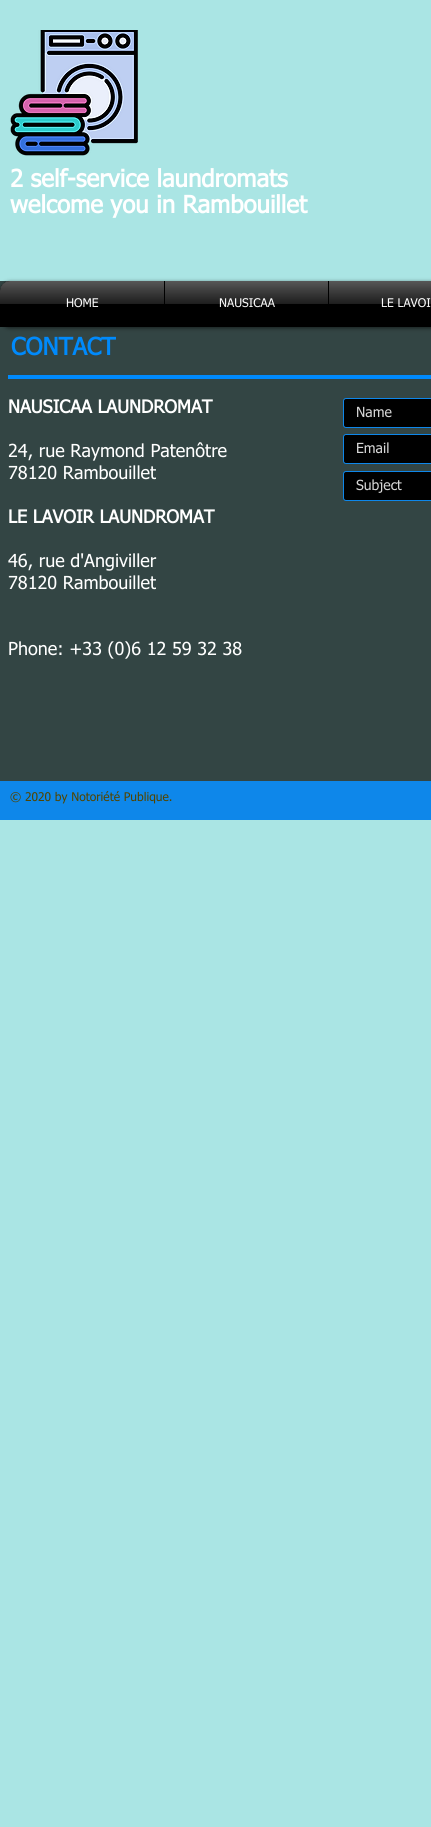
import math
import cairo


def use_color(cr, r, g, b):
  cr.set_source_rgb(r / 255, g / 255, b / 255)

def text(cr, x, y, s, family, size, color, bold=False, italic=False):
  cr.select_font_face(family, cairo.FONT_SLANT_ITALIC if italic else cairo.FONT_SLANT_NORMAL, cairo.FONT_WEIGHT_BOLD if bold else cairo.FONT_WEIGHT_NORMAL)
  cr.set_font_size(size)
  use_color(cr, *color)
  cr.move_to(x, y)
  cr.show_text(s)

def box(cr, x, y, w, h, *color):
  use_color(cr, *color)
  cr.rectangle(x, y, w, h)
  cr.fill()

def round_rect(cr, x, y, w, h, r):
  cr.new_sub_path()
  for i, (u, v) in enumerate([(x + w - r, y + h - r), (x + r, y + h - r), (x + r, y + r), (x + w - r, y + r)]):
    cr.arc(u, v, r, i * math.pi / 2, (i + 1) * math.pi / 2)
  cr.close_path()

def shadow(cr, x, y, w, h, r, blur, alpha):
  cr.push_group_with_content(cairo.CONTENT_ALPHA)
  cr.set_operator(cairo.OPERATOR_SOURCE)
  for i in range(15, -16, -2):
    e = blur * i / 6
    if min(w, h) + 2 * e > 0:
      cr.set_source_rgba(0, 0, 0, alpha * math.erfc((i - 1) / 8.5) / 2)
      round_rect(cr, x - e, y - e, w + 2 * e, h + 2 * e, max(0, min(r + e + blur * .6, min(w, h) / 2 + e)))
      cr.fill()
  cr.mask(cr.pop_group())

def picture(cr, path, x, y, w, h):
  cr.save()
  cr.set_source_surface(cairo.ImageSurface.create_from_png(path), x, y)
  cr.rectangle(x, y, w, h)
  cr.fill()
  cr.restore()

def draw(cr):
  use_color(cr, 170, 229, 228)
  cr.paint()
  picture(cr, "img_01.png", 10, 30, 128, 126)
  box(cr, 0, 281, 431, 500, 51, 69, 68)
  use_color(cr, 0, 0, 0)
  shadow(cr, 0, 282, 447, 46, 10, 2, 0.6)
  picture(cr, "img_02.png", 0, 281, 10, 10)
  use_color(cr, 0, 0, 0)
  cr.new_path()
  cr.move_to(10, 281)
  cr.line_to(164, 281)
  cr.line_to(164, 327)
  cr.line_to(0, 327)
  cr.line_to(0, 291)
  cr.curve_to(0, 285.5, 4.5, 281, 10, 281)
  cr.close_path()
  cr.fill()
  box(cr, 164, 281, 267, 46, 0, 0, 0)
  box(cr, 8, 375, 423, 4, 0, 138, 252)
  use_color(cr, 0, 0, 0)
  round_rect(cr, 343.5, 398.5, 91, 29, 2.5)
  cr.fill_preserve()
  use_color(cr, 14, 135, 234)
  cr.set_line_width(1)
  cr.stroke()
  use_color(cr, 0, 0, 0)
  round_rect(cr, 343.5, 434.5, 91, 29, 2.5)
  cr.fill_preserve()
  use_color(cr, 14, 135, 234)
  cr.stroke()
  use_color(cr, 0, 0, 0)
  round_rect(cr, 343.5, 471.5, 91, 29, 2.5)
  cr.fill_preserve()
  use_color(cr, 14, 135, 234)
  cr.stroke()
  box(cr, 0, 781, 431, 39, 14, 135, 234)
  text(cr, 10, 187, "2 self-service laundromats", "tahoma", 24, (255, 255, 255), bold=True)
  text(cr, 10, 213, "welcome you in Rambouillet", "tahoma", 24, (255, 255, 255), bold=True)
  text(cr, 66, 307, "HOME", "tahoma", 12, (255, 255, 255))
  picture(cr, "img_03.png", 0, 281, 164, 26)
  text(cr, 219, 307, "NAUSICAA", "tahoma", 12, (255, 255, 255))
  picture(cr, "img_04.png", 165, 281, 163, 26)
  text(cr, 381, 307, "LE LAVOI", "tahoma", 12, (255, 255, 255))
  picture(cr, "img_05.png", 329, 281, 102, 26)
  text(cr, 11, 355, "CONTACT", "tahoma", 24, (0, 138, 252), bold=True)
  text(cr, 8, 413, "NAUSICAA LAUNDROMAT", "tahoma", 18, (255, 255, 255), bold=True)
  text(cr, 8, 457, "24, rue Raymond Patenôtre", "tahoma", 18, (255, 255, 255))
  text(cr, 8, 479, "78120 Rambouillet", "tahoma", 18, (255, 255, 255))
  text(cr, 8, 523, "LE LAVOIR LAUNDROMAT", "tahoma", 18, (255, 255, 255), bold=True)
  text(cr, 8, 567, "46, rue d'Angiviller", "tahoma", 18, (255, 255, 255))
  text(cr, 8, 589, "78120 Rambouillet", "tahoma", 18, (255, 255, 255))
  text(cr, 8, 655, "Phone: +33 (0)6 12 59 32 38", "tahoma", 18, (255, 255, 255))
  text(cr, 356, 417, "Name", "tahoma", 14, (214, 214, 214))
  text(cr, 356, 453, "Email", "tahoma", 14, (214, 214, 214))
  text(cr, 356, 490, "Subject", "tahoma", 14, (214, 214, 214))
  text(cr, 10, 801, "© 2020 by Notoriété Publique.", "tahoma", 12, (82, 69, 0))


surface = cairo.ImageSurface(cairo.FORMAT_RGB24, 431, 1827)
cr = cairo.Context(surface)
options = cairo.FontOptions()
options.set_hint_metrics(cairo.HINT_METRICS_OFF)
options.set_hint_style(cairo.HINT_STYLE_NONE)
cr.set_font_options(options)
cr.set_miter_limit(4)
draw(cr)
surface.write_to_png("out.png")
